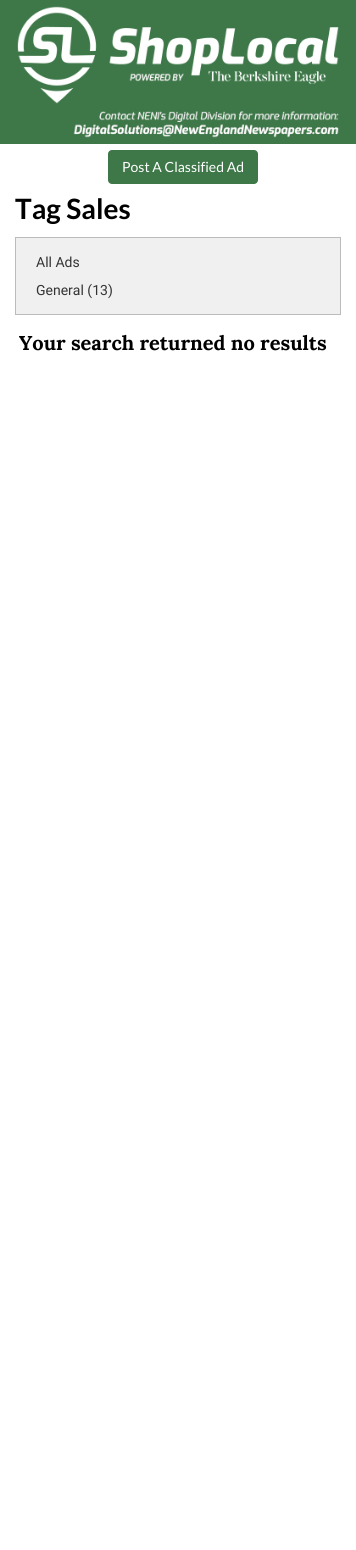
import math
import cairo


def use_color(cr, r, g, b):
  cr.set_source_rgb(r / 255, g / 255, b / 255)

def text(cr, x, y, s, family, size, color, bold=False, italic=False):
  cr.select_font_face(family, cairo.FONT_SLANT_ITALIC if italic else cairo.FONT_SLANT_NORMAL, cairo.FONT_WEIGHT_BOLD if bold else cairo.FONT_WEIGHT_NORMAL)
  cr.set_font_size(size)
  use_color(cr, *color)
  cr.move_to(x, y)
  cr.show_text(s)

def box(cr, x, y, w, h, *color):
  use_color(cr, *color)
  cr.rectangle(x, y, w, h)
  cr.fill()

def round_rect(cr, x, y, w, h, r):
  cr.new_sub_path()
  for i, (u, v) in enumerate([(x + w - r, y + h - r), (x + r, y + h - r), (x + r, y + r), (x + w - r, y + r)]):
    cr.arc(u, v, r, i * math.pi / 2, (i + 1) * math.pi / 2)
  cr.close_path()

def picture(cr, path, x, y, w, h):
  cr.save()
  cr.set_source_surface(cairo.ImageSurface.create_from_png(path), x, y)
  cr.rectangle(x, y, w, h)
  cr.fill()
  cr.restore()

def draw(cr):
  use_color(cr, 255, 255, 255)
  cr.paint()
  box(cr, 0, 0, 356, 144, 62, 120, 72)
  picture(cr, "img_01.png", 17, 6, 322, 132)
  round_rect(cr, 108, 150, 150, 34, 4)
  cr.fill()
  use_color(cr, 240, 240, 240)
  cr.rectangle(15.5, 237.5, 325, 77)
  cr.fill_preserve()
  use_color(cr, 187, 187, 187)
  cr.set_line_width(1)
  cr.stroke()
  text(cr, 122, 172, "Post A Classified Ad", "Lato", 14, (255, 255, 255))
  text(cr, 15, 219, "Tag Sales", "Lato", 28, (0, 0, 0), bold=True)
  text(cr, 36, 267, "All Ads", "Roboto", 14, (51, 51, 51))
  text(cr, 36, 295, "General (13)", "Roboto", 14, (51, 51, 51))
  text(cr, 19, 350, "Your search returned no results", "Lora", 20, (0, 0, 0), bold=True)


surface = cairo.ImageSurface(cairo.FORMAT_RGB24, 356, 1550)
cr = cairo.Context(surface)
options = cairo.FontOptions()
options.set_hint_metrics(cairo.HINT_METRICS_OFF)
options.set_hint_style(cairo.HINT_STYLE_NONE)
cr.set_font_options(options)
cr.set_miter_limit(4)
draw(cr)
surface.write_to_png("out.png")
